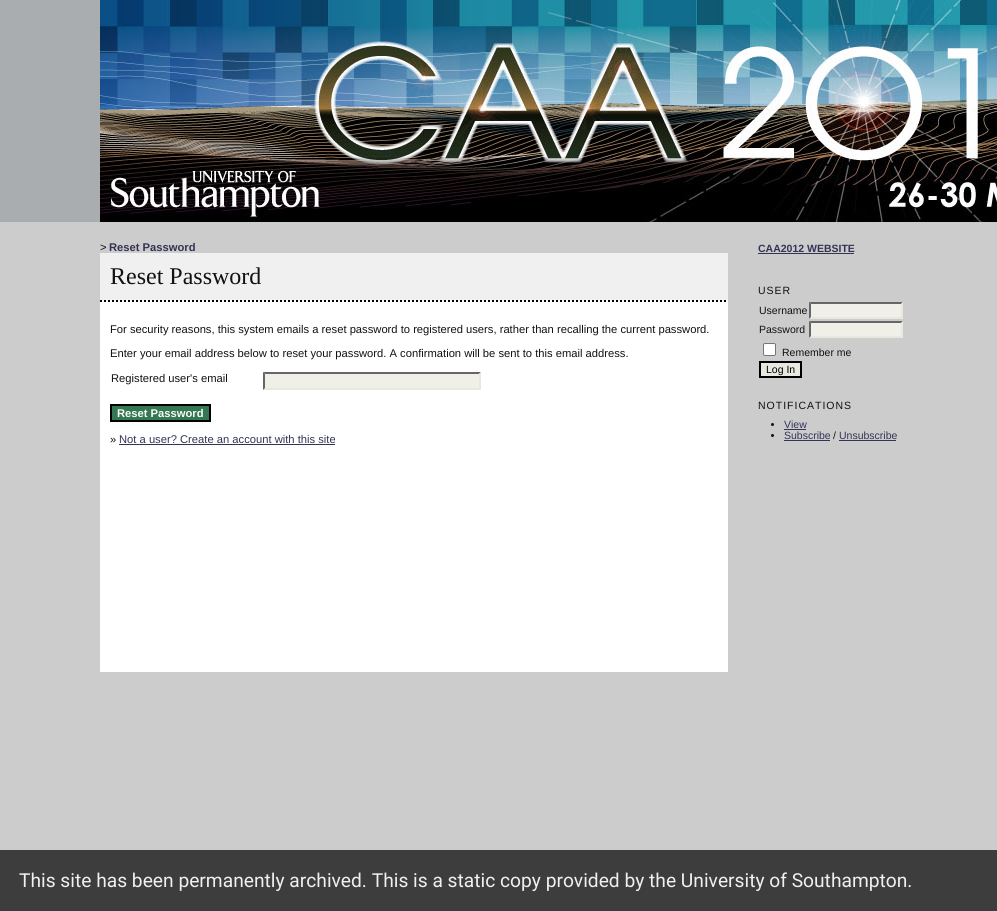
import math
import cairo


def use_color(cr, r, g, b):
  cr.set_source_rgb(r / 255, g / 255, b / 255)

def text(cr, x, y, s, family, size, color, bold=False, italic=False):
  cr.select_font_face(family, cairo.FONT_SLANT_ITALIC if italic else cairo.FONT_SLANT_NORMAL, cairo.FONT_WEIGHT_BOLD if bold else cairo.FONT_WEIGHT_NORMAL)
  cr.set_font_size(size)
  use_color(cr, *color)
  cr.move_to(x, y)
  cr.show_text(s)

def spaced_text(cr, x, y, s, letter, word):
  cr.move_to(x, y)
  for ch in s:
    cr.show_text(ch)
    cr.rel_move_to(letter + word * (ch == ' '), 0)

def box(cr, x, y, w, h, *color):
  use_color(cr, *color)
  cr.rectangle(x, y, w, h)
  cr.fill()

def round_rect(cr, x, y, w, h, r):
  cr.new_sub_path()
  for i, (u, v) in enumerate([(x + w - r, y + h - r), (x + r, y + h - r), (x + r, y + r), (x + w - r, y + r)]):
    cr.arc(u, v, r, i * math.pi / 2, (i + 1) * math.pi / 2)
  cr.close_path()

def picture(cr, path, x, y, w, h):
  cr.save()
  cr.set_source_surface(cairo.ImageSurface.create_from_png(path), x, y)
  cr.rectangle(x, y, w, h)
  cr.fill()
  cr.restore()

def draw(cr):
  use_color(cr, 204, 204, 204)
  cr.paint()
  box(cr, 0, 0, 100, 222, 169, 173, 176)
  picture(cr, "img_01.png", 100, 0, 897, 222)
  box(cr, 100, 253, 628, 47, 240, 240, 240)
  box(cr, 100, 300, 628, 372, 255, 255, 255)
  cr.new_path()
  cr.move_to(100, 301)
  cr.line_to(728, 301)
  use_color(cr, 0, 0, 0)
  cr.set_dash([2, 2])
  cr.stroke()
  box(cr, 263, 372, 218, 18, 240, 240, 232)
  use_color(cr, 102, 102, 102)
  cr.new_path()
  cr.move_to(263, 372)
  cr.line_to(481, 372)
  cr.line_to(479, 374)
  cr.line_to(265, 374)
  cr.close_path()
  cr.fill()
  use_color(cr, 232, 232, 225)
  cr.new_path()
  cr.move_to(481, 372)
  cr.line_to(481, 390)
  cr.line_to(479, 388)
  cr.line_to(479, 374)
  cr.close_path()
  cr.fill()
  cr.new_path()
  cr.move_to(481, 390)
  cr.line_to(263, 390)
  cr.line_to(265, 388)
  cr.line_to(479, 388)
  cr.close_path()
  cr.fill()
  use_color(cr, 102, 102, 102)
  cr.new_path()
  cr.move_to(263, 390)
  cr.line_to(263, 372)
  cr.line_to(265, 374)
  cr.line_to(265, 388)
  cr.close_path()
  cr.fill()
  use_color(cr, 51, 119, 85)
  cr.rectangle(111, 405, 99, 16)
  cr.fill_preserve()
  use_color(cr, 0, 0, 0)
  cr.set_dash([])
  cr.stroke()
  box(cr, 119, 444, 216, 1, 51, 51, 85)
  box(cr, 758, 253, 96, 1, 51, 51, 85)
  box(cr, 809, 302, 94, 17, 240, 240, 232)
  use_color(cr, 102, 102, 102)
  cr.new_path()
  cr.move_to(809, 302)
  cr.line_to(903, 302)
  cr.line_to(901, 304)
  cr.line_to(811, 304)
  cr.close_path()
  cr.fill()
  use_color(cr, 232, 232, 225)
  cr.new_path()
  cr.move_to(903, 302)
  cr.line_to(903, 319)
  cr.line_to(901, 317)
  cr.line_to(901, 304)
  cr.close_path()
  cr.fill()
  cr.new_path()
  cr.move_to(903, 319)
  cr.line_to(809, 319)
  cr.line_to(811, 317)
  cr.line_to(901, 317)
  cr.close_path()
  cr.fill()
  use_color(cr, 102, 102, 102)
  cr.new_path()
  cr.move_to(809, 319)
  cr.line_to(809, 302)
  cr.line_to(811, 304)
  cr.line_to(811, 317)
  cr.close_path()
  cr.fill()
  box(cr, 809, 321, 94, 17, 240, 240, 232)
  use_color(cr, 102, 102, 102)
  cr.new_path()
  cr.move_to(809, 321)
  cr.line_to(903, 321)
  cr.line_to(901, 323)
  cr.line_to(811, 323)
  cr.close_path()
  cr.fill()
  use_color(cr, 232, 232, 225)
  cr.new_path()
  cr.move_to(903, 321)
  cr.line_to(903, 338)
  cr.line_to(901, 336)
  cr.line_to(901, 323)
  cr.close_path()
  cr.fill()
  cr.new_path()
  cr.move_to(903, 338)
  cr.line_to(809, 338)
  cr.line_to(811, 336)
  cr.line_to(901, 336)
  cr.close_path()
  cr.fill()
  use_color(cr, 102, 102, 102)
  cr.new_path()
  cr.move_to(809, 338)
  cr.line_to(809, 321)
  cr.line_to(811, 323)
  cr.line_to(811, 336)
  cr.close_path()
  cr.fill()
  use_color(cr, 255, 255, 255)
  round_rect(cr, 763.5, 343.5, 12, 12, 1.5)
  cr.fill_preserve()
  use_color(cr, 118, 118, 118)
  cr.set_line_width(1)
  cr.stroke()
  use_color(cr, 232, 232, 225)
  cr.rectangle(760, 362, 41, 15)
  cr.fill_preserve()
  use_color(cr, 0, 0, 0)
  cr.set_line_width(2)
  cr.stroke()
  use_color(cr, 17, 17, 17)
  cr.arc(772.5, 424.5, 1.5, 0, 2 * math.pi)
  cr.fill()
  box(cr, 784, 429, 22, 1, 51, 51, 85)
  use_color(cr, 17, 17, 17)
  cr.arc(772.5, 435.5, 1.5, 0, 2 * math.pi)
  cr.fill()
  box(cr, 784, 440, 46, 1, 51, 51, 85)
  box(cr, 839, 440, 57, 1, 51, 51, 85)
  box(cr, 0, 850, 997, 61, 61, 61, 61)
  text(cr, 100, 251, ">", "Liberation Sans", 11.2, (17, 17, 17))
  text(cr, 109, 251, "Reset Password", "Liberation Sans", 11.2, (51, 51, 85), bold=True)
  text(cr, 110, 284, "Reset Password", "Liberation Serif", 24, (17, 17, 17))
  text(cr, 110, 333, "For security reasons, this system emails a reset password to registered users, rather than recalling the current password.", "Liberation Sans", 11.2, (17, 17, 17))
  text(cr, 110, 357, "Enter your email address below to reset your password. A confirmation will be sent to this email address.", "Liberation Sans", 11.2, (17, 17, 17))
  text(cr, 111, 382, "Registered user's email", "Liberation Sans", 11.2, (17, 17, 17))
  text(cr, 117, 417, "Reset Password", "Liberation Sans", 11.2, (251, 251, 243), bold=True)
  text(cr, 110, 443, "»", "Liberation Sans", 11.2, (17, 17, 17))
  text(cr, 119, 443, "Not a user? Create an account with this site", "Liberation Sans", 11.2, (51, 51, 85))
  text(cr, 758, 252, "CAA2012 WEBSITE", "Liberation Sans", 10.5, (51, 51, 85), bold=True)
  cr.select_font_face("Liberation Sans")
  use_color(cr, 17, 17, 17)
  spaced_text(cr, 758, 294, "USER", 1, 0)
  text(cr, 759, 314, "Username", "Liberation Sans", 10.5, (17, 17, 17))
  text(cr, 759, 333, "Password", "Liberation Sans", 10.5, (17, 17, 17))
  text(cr, 782, 356, "Remember me", "Liberation Sans", 10.5, (17, 17, 17))
  text(cr, 766, 373, "Log In", "Liberation Sans", 10.5, (0, 0, 0))
  use_color(cr, 17, 17, 17)
  spaced_text(cr, 758, 409, "NOTIFICATIONS", 1, 0)
  text(cr, 784, 428, "View", "Liberation Sans", 10.5, (51, 51, 85))
  text(cr, 784, 439, "Subscribe", "Liberation Sans", 10.5, (51, 51, 85))
  text(cr, 833, 439, "/", "Liberation Sans", 10.5, (17, 17, 17))
  text(cr, 839, 439, "Unsubscribe", "Liberation Sans", 10.5, (51, 51, 85))
  text(cr, 19, 887, "This site has been permanently archived. This is a static copy provided by the University of Southampton.", "Roboto", 19.2, (240, 240, 240))


surface = cairo.ImageSurface(cairo.FORMAT_RGB24, 997, 911)
cr = cairo.Context(surface)
options = cairo.FontOptions()
options.set_hint_metrics(cairo.HINT_METRICS_OFF)
options.set_hint_style(cairo.HINT_STYLE_NONE)
cr.set_font_options(options)
cr.set_miter_limit(4)
draw(cr)
surface.write_to_png("out.png")
